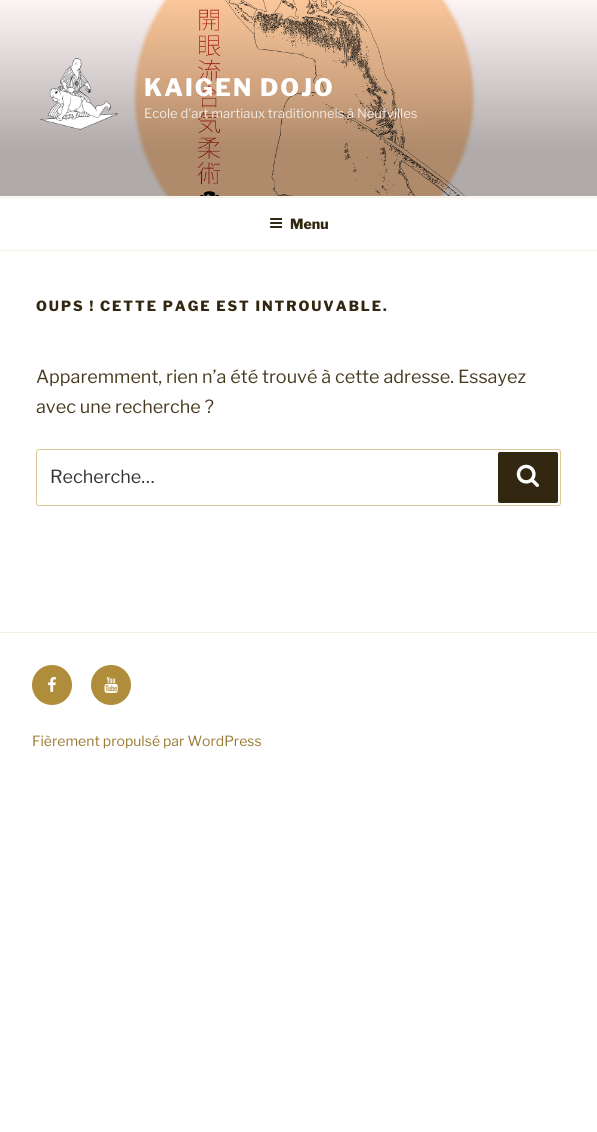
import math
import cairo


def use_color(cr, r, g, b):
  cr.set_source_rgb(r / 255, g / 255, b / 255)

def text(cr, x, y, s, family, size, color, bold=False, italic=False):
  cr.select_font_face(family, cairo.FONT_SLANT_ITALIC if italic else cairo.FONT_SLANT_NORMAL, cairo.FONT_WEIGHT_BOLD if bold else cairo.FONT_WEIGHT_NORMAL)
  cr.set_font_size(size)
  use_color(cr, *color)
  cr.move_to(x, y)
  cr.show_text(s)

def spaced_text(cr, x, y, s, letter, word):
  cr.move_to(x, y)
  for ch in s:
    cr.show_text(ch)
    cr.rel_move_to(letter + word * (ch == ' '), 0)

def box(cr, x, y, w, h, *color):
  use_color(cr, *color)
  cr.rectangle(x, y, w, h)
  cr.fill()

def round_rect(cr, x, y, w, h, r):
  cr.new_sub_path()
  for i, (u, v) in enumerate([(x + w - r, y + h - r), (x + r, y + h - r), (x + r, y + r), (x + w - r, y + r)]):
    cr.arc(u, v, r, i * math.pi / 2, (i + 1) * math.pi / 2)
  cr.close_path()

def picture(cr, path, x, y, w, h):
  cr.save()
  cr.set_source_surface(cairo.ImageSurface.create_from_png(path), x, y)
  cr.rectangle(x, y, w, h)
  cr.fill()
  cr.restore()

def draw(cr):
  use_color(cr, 255, 255, 255)
  cr.paint()
  box(cr, 0, 196, 597, 1, 252, 251, 247)
  picture(cr, "img_01.png", 0, 0, 597, 196)
  picture(cr, "img_02.png", 40, 58, 78, 72)
  box(cr, 0, 197, 597, 1, 246, 241, 228)
  box(cr, 0, 250, 597, 1, 246, 241, 228)
  picture(cr, "img_03.png", 270, 218, 13, 10)
  round_rect(cr, 36.5, 449.5, 524, 56, 2.5)
  use_color(cr, 221, 200, 152)
  cr.set_line_width(1)
  cr.stroke()
  use_color(cr, 50, 40, 17)
  round_rect(cr, 498, 452, 60, 51, 2)
  cr.fill()
  picture(cr, "img_04.png", 516, 464, 23, 23)
  box(cr, 0, 632, 597, 1, 246, 241, 228)
  use_color(cr, 176, 141, 59)
  cr.arc(52, 685, 20, 0, 2 * math.pi)
  cr.fill()
  picture(cr, "img_05.png", 48, 677, 8, 15)
  cr.arc(111, 685, 20, 0, 2 * math.pi)
  cr.fill()
  picture(cr, "img_06.png", 104, 677, 14, 16)
  cr.select_font_face("Libre Franklin Thin")
  cr.set_font_size(24)
  use_color(cr, 255, 255, 255)
  spaced_text(cr, 144, 96, "KAIGEN DOJO", 2, 0)
  text(cr, 144, 118, "Ecole d'art martiaux traditionnels à Neufvilles", "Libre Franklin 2 Thin", 13, (241, 233, 227))
  text(cr, 290, 229, "Menu", "Libre Franklin Thin", 14, (50, 40, 17))
  spaced_text(cr, 36, 311, "OUPS ! CETTE PAGE EST INTROUVABLE.", 1.95, 0)
  text(cr, 36, 383, "Apparemment, rien n’a été trouvé à cette adresse. Essayez", "Libre Franklin 2 Thin", 18, (71, 59, 31))
  text(cr, 36, 413, "avec une recherche ?", "Libre Franklin 2 Thin", 18, (71, 59, 31))
  text(cr, 50, 483, "Recherche…", "Libre Franklin 2 Thin", 18, (51, 51, 51))
  text(cr, 32, 746, "Fièrement propulsé par WordPress", "Libre Franklin 2 Thin", 14, (153, 122, 51))


surface = cairo.ImageSurface(cairo.FORMAT_RGB24, 597, 1132)
cr = cairo.Context(surface)
options = cairo.FontOptions()
options.set_hint_metrics(cairo.HINT_METRICS_OFF)
options.set_hint_style(cairo.HINT_STYLE_NONE)
cr.set_font_options(options)
cr.set_miter_limit(4)
draw(cr)
surface.write_to_png("out.png")
